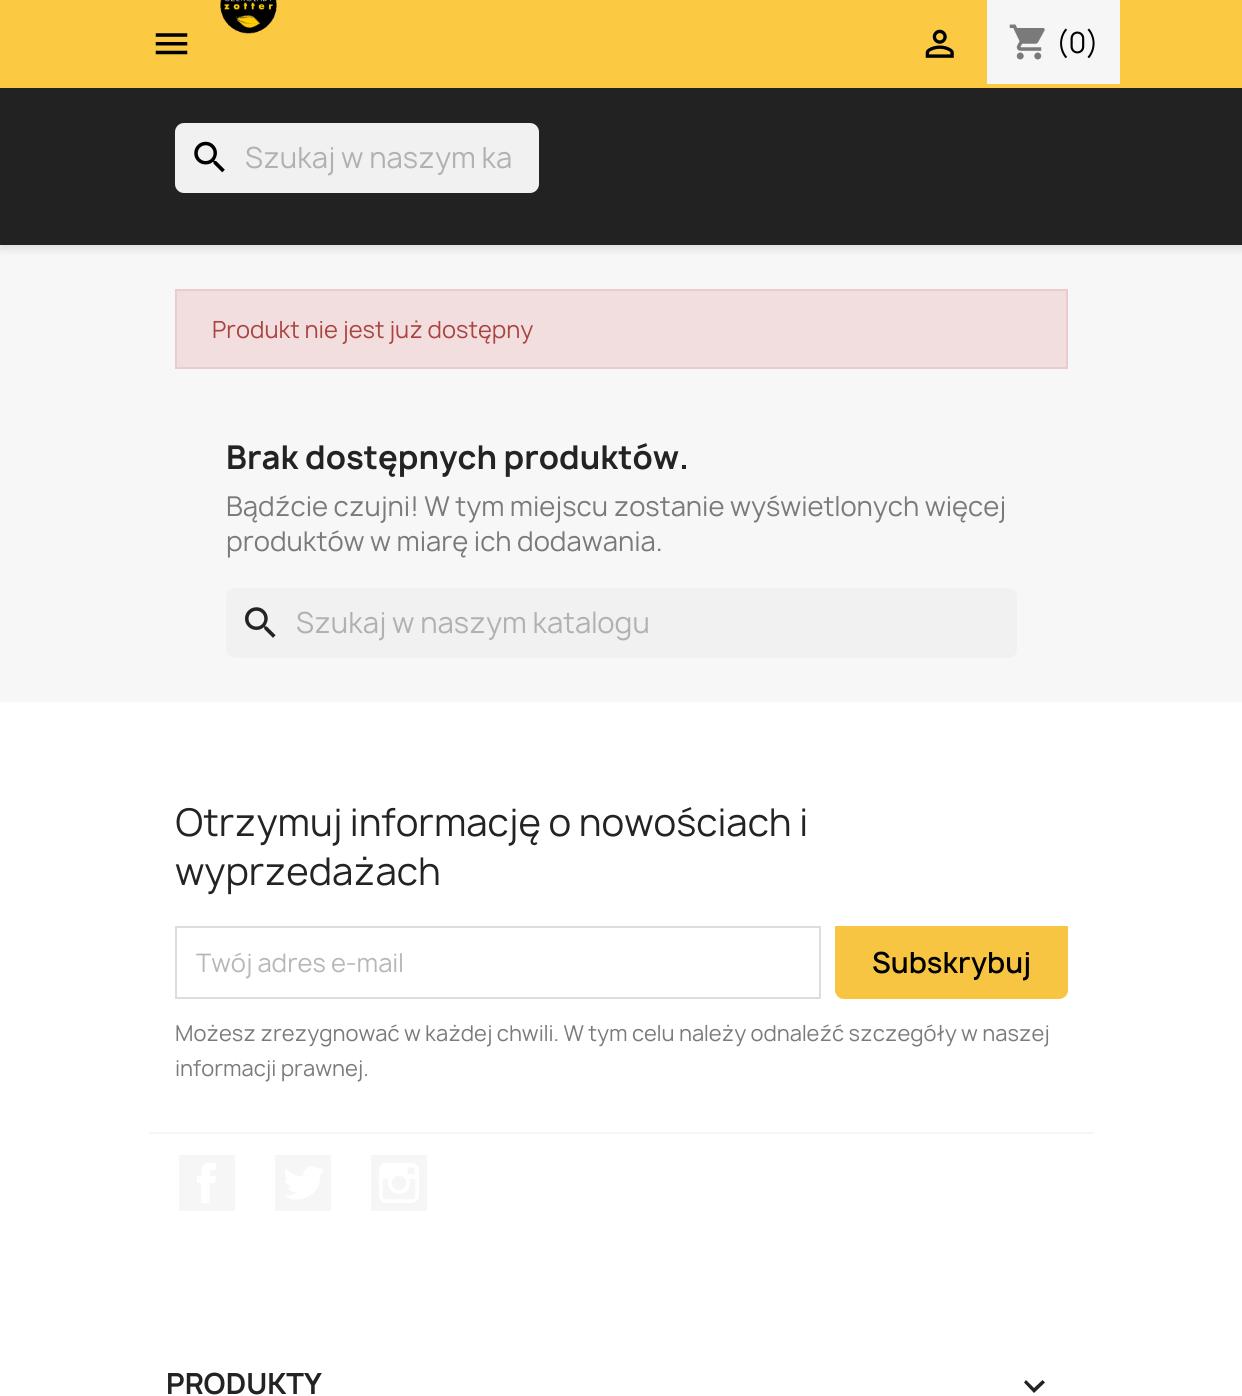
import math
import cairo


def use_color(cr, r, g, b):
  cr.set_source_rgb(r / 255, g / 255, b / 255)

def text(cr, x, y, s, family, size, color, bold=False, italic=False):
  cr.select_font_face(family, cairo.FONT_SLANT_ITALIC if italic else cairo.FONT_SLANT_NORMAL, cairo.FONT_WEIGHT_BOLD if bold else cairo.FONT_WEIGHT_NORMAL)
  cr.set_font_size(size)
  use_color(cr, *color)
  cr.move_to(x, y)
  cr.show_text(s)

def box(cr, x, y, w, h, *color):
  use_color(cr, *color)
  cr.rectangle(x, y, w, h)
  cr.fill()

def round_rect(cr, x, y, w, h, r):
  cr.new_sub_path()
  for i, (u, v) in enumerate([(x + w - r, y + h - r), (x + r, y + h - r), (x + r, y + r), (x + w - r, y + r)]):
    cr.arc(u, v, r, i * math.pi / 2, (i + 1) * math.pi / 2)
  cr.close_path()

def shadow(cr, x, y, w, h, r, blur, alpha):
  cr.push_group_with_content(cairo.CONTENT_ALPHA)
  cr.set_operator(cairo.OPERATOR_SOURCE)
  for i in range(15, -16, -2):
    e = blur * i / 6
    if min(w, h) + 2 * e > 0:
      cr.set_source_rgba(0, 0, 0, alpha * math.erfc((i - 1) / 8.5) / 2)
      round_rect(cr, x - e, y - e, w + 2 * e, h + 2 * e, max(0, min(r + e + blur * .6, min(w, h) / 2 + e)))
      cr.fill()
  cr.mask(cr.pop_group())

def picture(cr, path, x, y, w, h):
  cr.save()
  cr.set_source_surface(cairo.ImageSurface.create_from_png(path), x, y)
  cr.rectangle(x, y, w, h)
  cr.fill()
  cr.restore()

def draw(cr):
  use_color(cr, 255, 255, 255)
  cr.paint()
  box(cr, 0, 245, 1242, 457, 247, 247, 247)
  use_color(cr, 0, 0, 0)
  shadow(cr, 0, 4, 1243, 245, 0, 4.5, 0.11)
  box(cr, 0, 0, 1242, 88, 252, 201, 66)
  picture(cr, "img_01.png", 220, 0, 57, 34)
  picture(cr, "img_02.png", 155, 33, 33, 22)
  picture(cr, "img_03.png", 925, 29, 29, 29)
  box(cr, 987, 0, 133, 84, 246, 246, 246)
  picture(cr, "img_04.png", 1009, 24, 36, 36)
  box(cr, 0, 88, 1242, 157, 34, 34, 34)
  use_color(cr, 241, 241, 241)
  round_rect(cr, 175, 123, 364, 70, 9)
  cr.fill()
  picture(cr, "img_05.png", 194, 141, 31, 32)
  use_color(cr, 242, 222, 222)
  cr.rectangle(176, 290, 891, 78)
  cr.fill_preserve()
  use_color(cr, 235, 204, 204)
  cr.stroke()
  use_color(cr, 241, 241, 241)
  round_rect(cr, 226, 588, 791, 70, 9)
  cr.fill()
  picture(cr, "img_06.png", 245, 607, 31, 31)
  box(cr, 149, 1132, 945, 2, 246, 246, 246)
  cr.rectangle(176, 927, 644, 71)
  use_color(cr, 221, 221, 221)
  cr.stroke()
  use_color(cr, 247, 197, 65)
  cr.new_path()
  cr.move_to(836, 927)
  cr.line_to(1067, 927)
  cr.line_to(1067, 990)
  cr.curve_to(1067, 994.5, 1063.5, 998, 1059, 998)
  cr.line_to(844, 998)
  cr.curve_to(839.5, 998, 836, 994.5, 836, 990)
  cr.close_path()
  cr.fill_preserve()
  cr.stroke()
  box(cr, 179, 1155, 56, 56, 246, 246, 246)
  picture(cr, "img_07.png", 197, 1163, 19, 40)
  box(cr, 275, 1155, 56, 56, 246, 246, 246)
  picture(cr, "img_08.png", 285, 1166, 40, 34)
  box(cr, 371, 1155, 56, 56, 246, 246, 246)
  picture(cr, "img_09.png", 379, 1163, 40, 40)
  use_color(cr, 35, 35, 35)
  cr.new_path()
  cr.move_to(1026, 1380)
  cr.line_to(1034, 1388)
  cr.line_to(1042.5, 1380)
  cr.line_to(1045, 1382.5)
  cr.line_to(1034, 1393)
  cr.line_to(1024, 1382.5)
  cr.close_path()
  cr.fill()
  text(cr, 1056, 53, "(0)", "Manrope", 28, (0, 0, 0))
  text(cr, 245, 168, "Szukaj w naszym ka", "Manrope", 28, (177, 177, 177))
  text(cr, 212, 338, "Produkt nie jest już dostępny", "Manrope", 22.75, (169, 68, 66))
  text(cr, 226, 469, "Brak dostępnych produktów.", "Manrope", 31.5, (35, 35, 35), bold=True)
  text(cr, 226, 516, "Bądźcie czujni! W tym miejscu zostanie wyświetlonych więcej", "Manrope", 26.25, (122, 122, 122))
  text(cr, 226, 551, "produktów w miarę ich dodawania.", "Manrope", 26.25, (122, 122, 122))
  text(cr, 296, 633, "Szukaj w naszym katalogu", "Manrope", 28, (177, 177, 177))
  text(cr, 175, 836, "Otrzymuj informację o nowościach i", "Manrope", 36.75, (35, 35, 35))
  text(cr, 175, 885, "wyprzedażach", "Manrope", 36.75, (35, 35, 35))
  text(cr, 196, 972, "Twój adres e-mail", "Manrope", 24.5, (183, 183, 183))
  text(cr, 872, 973, "Subskrybuj", "Manrope SemiBold", 28, (0, 0, 0))
  text(cr, 175, 1041, "Możesz zrezygnować w każdej chwili. W tym celu należy odnaleźć szczegóły w naszej", "Manrope", 21, (122, 122, 122))
  text(cr, 175, 1076, "informacji prawnej.", "Manrope", 21, (122, 122, 122))
  text(cr, 166, 1394, "PRODUKTY", "Manrope", 28, (35, 35, 35), bold=True)


surface = cairo.ImageSurface(cairo.FORMAT_RGB24, 1242, 1396)
cr = cairo.Context(surface)
options = cairo.FontOptions()
options.set_hint_metrics(cairo.HINT_METRICS_OFF)
options.set_hint_style(cairo.HINT_STYLE_NONE)
cr.set_font_options(options)
cr.set_miter_limit(4)
draw(cr)
surface.write_to_png("out.png")
